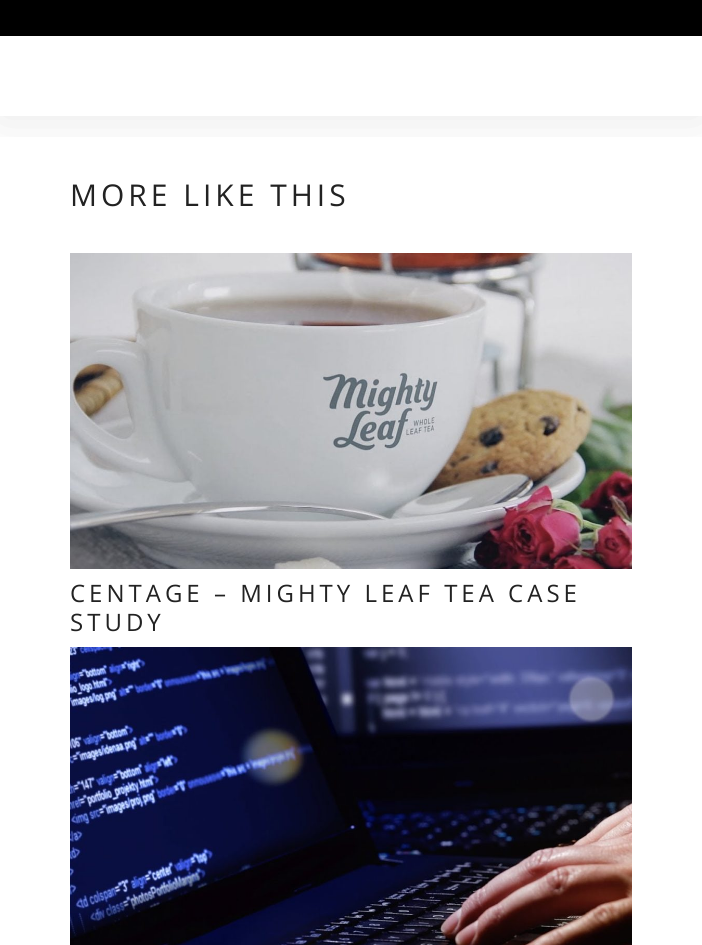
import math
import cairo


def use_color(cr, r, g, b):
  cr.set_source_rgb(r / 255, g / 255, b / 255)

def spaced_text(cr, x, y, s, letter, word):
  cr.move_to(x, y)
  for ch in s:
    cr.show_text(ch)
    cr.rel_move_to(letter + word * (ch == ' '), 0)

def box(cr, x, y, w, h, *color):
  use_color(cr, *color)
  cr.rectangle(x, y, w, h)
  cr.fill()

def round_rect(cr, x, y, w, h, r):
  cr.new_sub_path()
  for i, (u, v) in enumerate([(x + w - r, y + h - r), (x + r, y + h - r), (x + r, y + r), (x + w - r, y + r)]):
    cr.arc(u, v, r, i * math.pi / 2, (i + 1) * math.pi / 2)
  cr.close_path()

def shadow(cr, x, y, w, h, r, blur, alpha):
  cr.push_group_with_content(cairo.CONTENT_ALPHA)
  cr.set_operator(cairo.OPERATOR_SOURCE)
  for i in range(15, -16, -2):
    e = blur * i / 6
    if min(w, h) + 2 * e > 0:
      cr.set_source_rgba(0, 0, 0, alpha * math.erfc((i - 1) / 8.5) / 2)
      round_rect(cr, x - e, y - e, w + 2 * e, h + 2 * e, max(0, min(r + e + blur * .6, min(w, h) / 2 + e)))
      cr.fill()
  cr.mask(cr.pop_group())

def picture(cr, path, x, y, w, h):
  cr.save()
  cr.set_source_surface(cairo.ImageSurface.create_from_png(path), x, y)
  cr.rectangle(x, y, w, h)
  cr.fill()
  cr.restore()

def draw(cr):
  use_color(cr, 255, 255, 255)
  cr.paint()
  cr.save()
  cr.rectangle(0, 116, 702, 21)
  cr.clip()
  use_color(cr, 0, 0, 0)
  shadow(cr, 0, 36, 702, 80, 0, 25, 0.1)
  cr.restore()
  box(cr, 0, 0, 702, 36, 0, 0, 0)
  picture(cr, "img_01.png", 70, 253, 562, 316)
  picture(cr, "img_02.png", 70, 647, 562, 298)
  cr.select_font_face("Open Sans")
  cr.set_font_size(30)
  use_color(cr, 34, 34, 34)
  spaced_text(cr, 70, 206, "MORE LIKE THIS", 4, 0)
  cr.set_font_size(24)
  spaced_text(cr, 70, 602, "CENTAGE – MIGHTY LEAF TEA CASE", 4, 0)
  spaced_text(cr, 70, 631, "STUDY", 4, 0)


surface = cairo.ImageSurface(cairo.FORMAT_RGB24, 702, 945)
cr = cairo.Context(surface)
options = cairo.FontOptions()
options.set_hint_metrics(cairo.HINT_METRICS_OFF)
options.set_hint_style(cairo.HINT_STYLE_NONE)
cr.set_font_options(options)
cr.set_miter_limit(4)
draw(cr)
surface.write_to_png("out.png")
